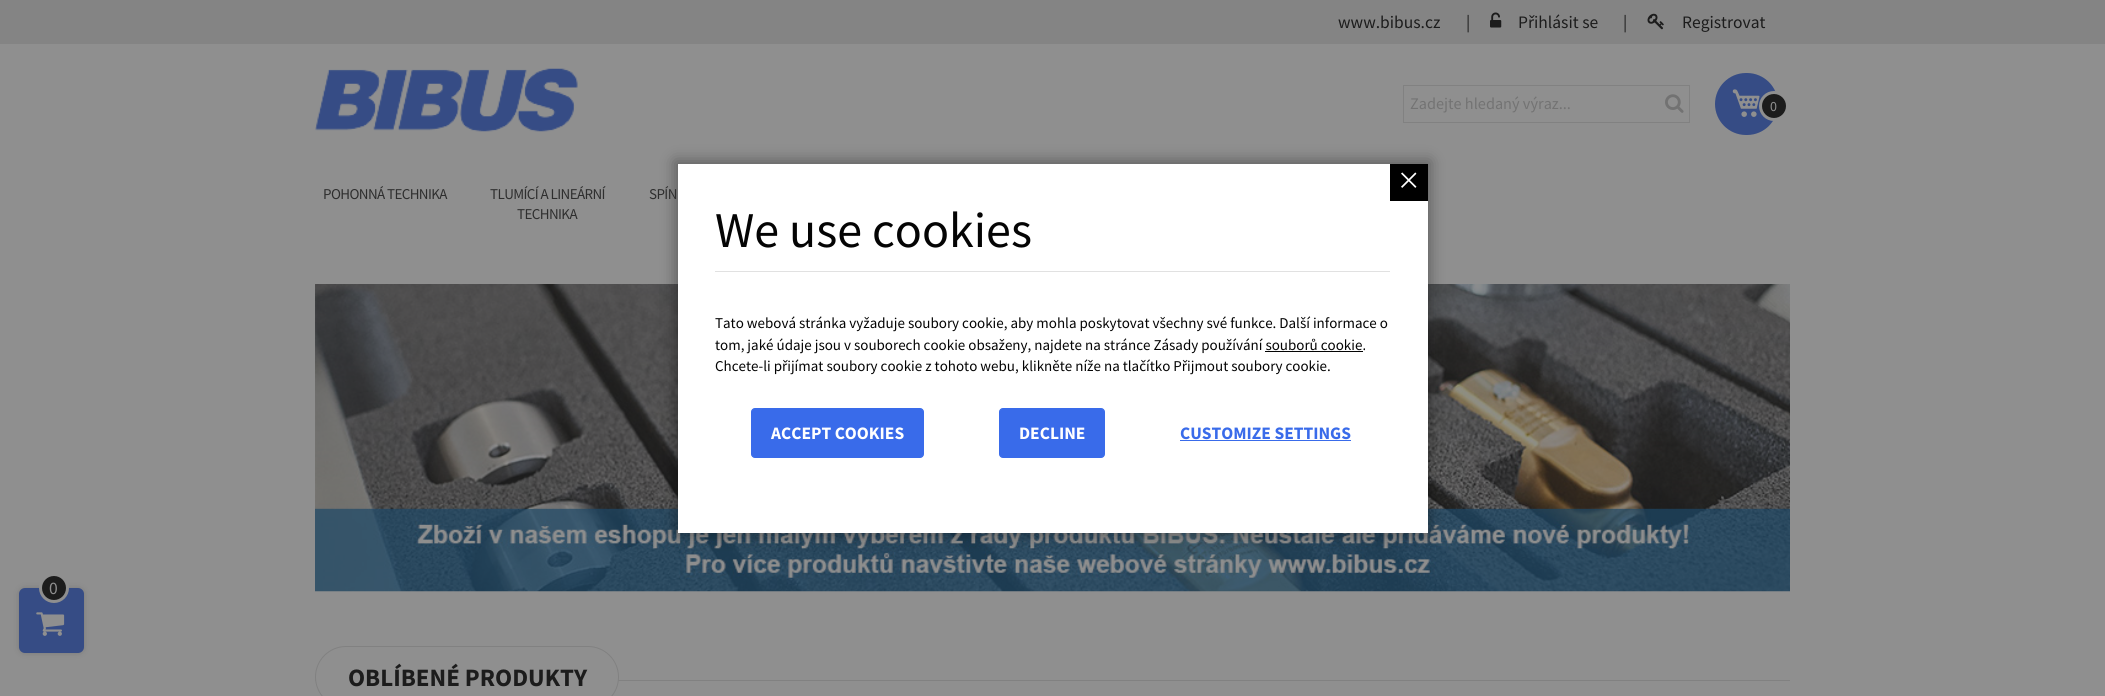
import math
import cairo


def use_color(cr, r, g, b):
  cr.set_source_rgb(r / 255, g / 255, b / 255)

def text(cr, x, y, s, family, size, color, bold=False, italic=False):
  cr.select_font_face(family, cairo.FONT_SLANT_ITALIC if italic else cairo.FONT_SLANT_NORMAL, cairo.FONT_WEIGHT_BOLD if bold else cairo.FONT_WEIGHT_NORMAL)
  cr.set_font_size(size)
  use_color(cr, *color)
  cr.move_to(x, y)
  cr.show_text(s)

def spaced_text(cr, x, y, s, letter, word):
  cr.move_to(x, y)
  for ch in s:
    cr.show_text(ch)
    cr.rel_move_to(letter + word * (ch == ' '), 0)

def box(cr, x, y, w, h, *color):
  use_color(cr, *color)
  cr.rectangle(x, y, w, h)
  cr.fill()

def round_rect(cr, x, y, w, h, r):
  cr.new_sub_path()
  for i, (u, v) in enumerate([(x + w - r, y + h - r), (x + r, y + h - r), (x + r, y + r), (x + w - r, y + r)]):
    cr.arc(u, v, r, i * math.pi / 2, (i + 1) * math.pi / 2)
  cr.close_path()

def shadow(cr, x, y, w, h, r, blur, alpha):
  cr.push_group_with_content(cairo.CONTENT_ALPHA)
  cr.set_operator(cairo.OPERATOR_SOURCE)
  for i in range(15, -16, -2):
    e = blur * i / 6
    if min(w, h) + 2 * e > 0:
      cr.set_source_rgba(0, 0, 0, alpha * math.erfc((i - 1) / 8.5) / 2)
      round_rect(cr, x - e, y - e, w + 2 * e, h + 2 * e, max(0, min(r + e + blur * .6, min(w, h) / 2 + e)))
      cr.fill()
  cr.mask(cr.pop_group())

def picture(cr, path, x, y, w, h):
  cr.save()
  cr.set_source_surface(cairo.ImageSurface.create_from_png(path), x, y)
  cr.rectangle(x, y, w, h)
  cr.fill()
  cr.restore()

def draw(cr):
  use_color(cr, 143, 143, 143)
  cr.paint()
  box(cr, 0, 0, 2105, 44, 132, 132, 132)
  picture(cr, "img_01.png", 1490, 12, 12, 16)
  picture(cr, "img_02.png", 1647, 13, 17, 17)
  picture(cr, "img_03.png", 315, 68, 263, 64)
  cr.rectangle(1403.5, 85.5, 286, 37)
  use_color(cr, 129, 129, 129)
  cr.set_line_width(1)
  cr.stroke()
  picture(cr, "img_04.png", 1665, 94, 19, 19)
  use_color(cr, 54, 76, 133)
  round_rect(cr, 1715, 73, 63, 62, 31)
  cr.fill()
  picture(cr, "img_05.png", 1732, 89, 28, 28)
  use_color(cr, 28, 28, 28)
  cr.arc(1774, 106, 13.5, 0, 2 * math.pi)
  cr.fill_preserve()
  use_color(cr, 143, 143, 143)
  cr.set_line_width(3)
  cr.stroke()
  use_color(cr, 28, 28, 28)
  shadow(cr, 19, 588, 65, 65, 6, 3, 0.2)
  use_color(cr, 54, 76, 133)
  round_rect(cr, 19, 588, 65, 65, 6)
  cr.fill()
  use_color(cr, 28, 28, 28)
  cr.arc(54, 588, 13.5, 0, 2 * math.pi)
  cr.fill_preserve()
  use_color(cr, 143, 143, 143)
  cr.stroke()
  picture(cr, "img_06.png", 36, 612, 29, 24)
  picture(cr, "img_07.png", 315, 284, 1475, 308)
  box(cr, 315, 680, 1475, 1, 129, 129, 129)
  use_color(cr, 143, 143, 143)
  round_rect(cr, 315.5, 646.5, 303, 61, 30.5)
  cr.fill_preserve()
  use_color(cr, 129, 129, 129)
  cr.set_line_width(1)
  cr.stroke()
  use_color(cr, 0, 0, 0)
  shadow(cr, 675, 161, 755, 374, 0, 7.5, 0.35)
  box(cr, 678, 164, 750, 369, 255, 255, 255)
  box(cr, 1390, 164, 38, 37, 0, 0, 0)
  picture(cr, "img_08.png", 1401, 172, 16, 16)
  box(cr, 715, 271, 675, 1, 225, 225, 225)
  box(cr, 1265, 351, 98, 1, 4, 4, 4)
  use_color(cr, 57, 107, 234)
  round_rect(cr, 751.5, 408.5, 172, 49, 3.5)
  cr.fill_preserve()
  cr.stroke()
  round_rect(cr, 999.5, 408.5, 105, 49, 3.5)
  cr.fill_preserve()
  cr.stroke()
  box(cr, 1180, 440, 171, 1, 57, 107, 234)
  text(cr, 1338, 28, "www.bibus.cz", "Source Sans Pro", 17.5, (28, 28, 28))
  text(cr, 1466, 28, "|", "Source Sans Pro", 17.5, (28, 28, 28))
  text(cr, 1518, 28, "Přihlásit se", "Source Sans Pro", 17.5, (28, 28, 28))
  text(cr, 1623, 28, "|", "Source Sans Pro", 17.5, (28, 28, 28))
  text(cr, 1682, 28, "Registrovat", "Source Sans Pro", 17.5, (28, 28, 28))
  cr.set_font_size(15)
  use_color(cr, 46, 46, 46)
  spaced_text(cr, 323, 199, "POHONNÁ TECHNIKA", -0.6, 0)
  spaced_text(cr, 490, 199, "TLUMÍCÍ A LINEÁRNÍ", -0.6, 0)
  spaced_text(cr, 517, 219, "TECHNIKA", -0.6, 0)
  spaced_text(cr, 649, 199, "SPÍN", -0.6, 0)
  text(cr, 1410, 109, "Zadejte hledaný výraz...", "Source Sans Pro", 16.25, (115, 115, 115))
  text(cr, 1770, 111, "0", "Source Sans Pro", 14, (143, 143, 143))
  text(cr, 49, 594, "0", "Source Sans Pro", 17.5, (143, 143, 143))
  text(cr, 348, 686, "OBLÍBENÉ PRODUKTY", "Source Sans Pro", 25, (28, 28, 28), bold=True)
  text(cr, 715, 247, "We use cookies", "Source Sans Pro", 50, (4, 4, 4))
  text(cr, 715, 328, "Tato webová stránka vyžaduje soubory cookie, aby mohla poskytovat všechny své funkce. Další informace o", "Source Sans Pro", 15, (4, 4, 4))
  text(cr, 715, 350, "tom, jaké údaje jsou v souborech cookie obsaženy, najdete na stránce Zásady používání souborů cookie.", "Source Sans Pro", 15, (4, 4, 4))
  text(cr, 715, 371, "Chcete-li přijímat soubory cookie z tohoto webu, klikněte níže na tlačítko Přijmout soubory cookie.", "Source Sans Pro", 15, (4, 4, 4))
  text(cr, 771, 439, "ACCEPT COOKIES", "Source Sans Pro", 17.5, (255, 255, 255), bold=True)
  text(cr, 1019, 439, "DECLINE", "Source Sans Pro", 17.5, (255, 255, 255), bold=True)
  text(cr, 1180, 439, "CUSTOMIZE SETTINGS", "Source Sans Pro", 17.5, (57, 107, 234), bold=True)


surface = cairo.ImageSurface(cairo.FORMAT_RGB24, 2105, 696)
cr = cairo.Context(surface)
options = cairo.FontOptions()
options.set_hint_metrics(cairo.HINT_METRICS_OFF)
options.set_hint_style(cairo.HINT_STYLE_NONE)
cr.set_font_options(options)
cr.set_miter_limit(4)
draw(cr)
surface.write_to_png("out.png")
